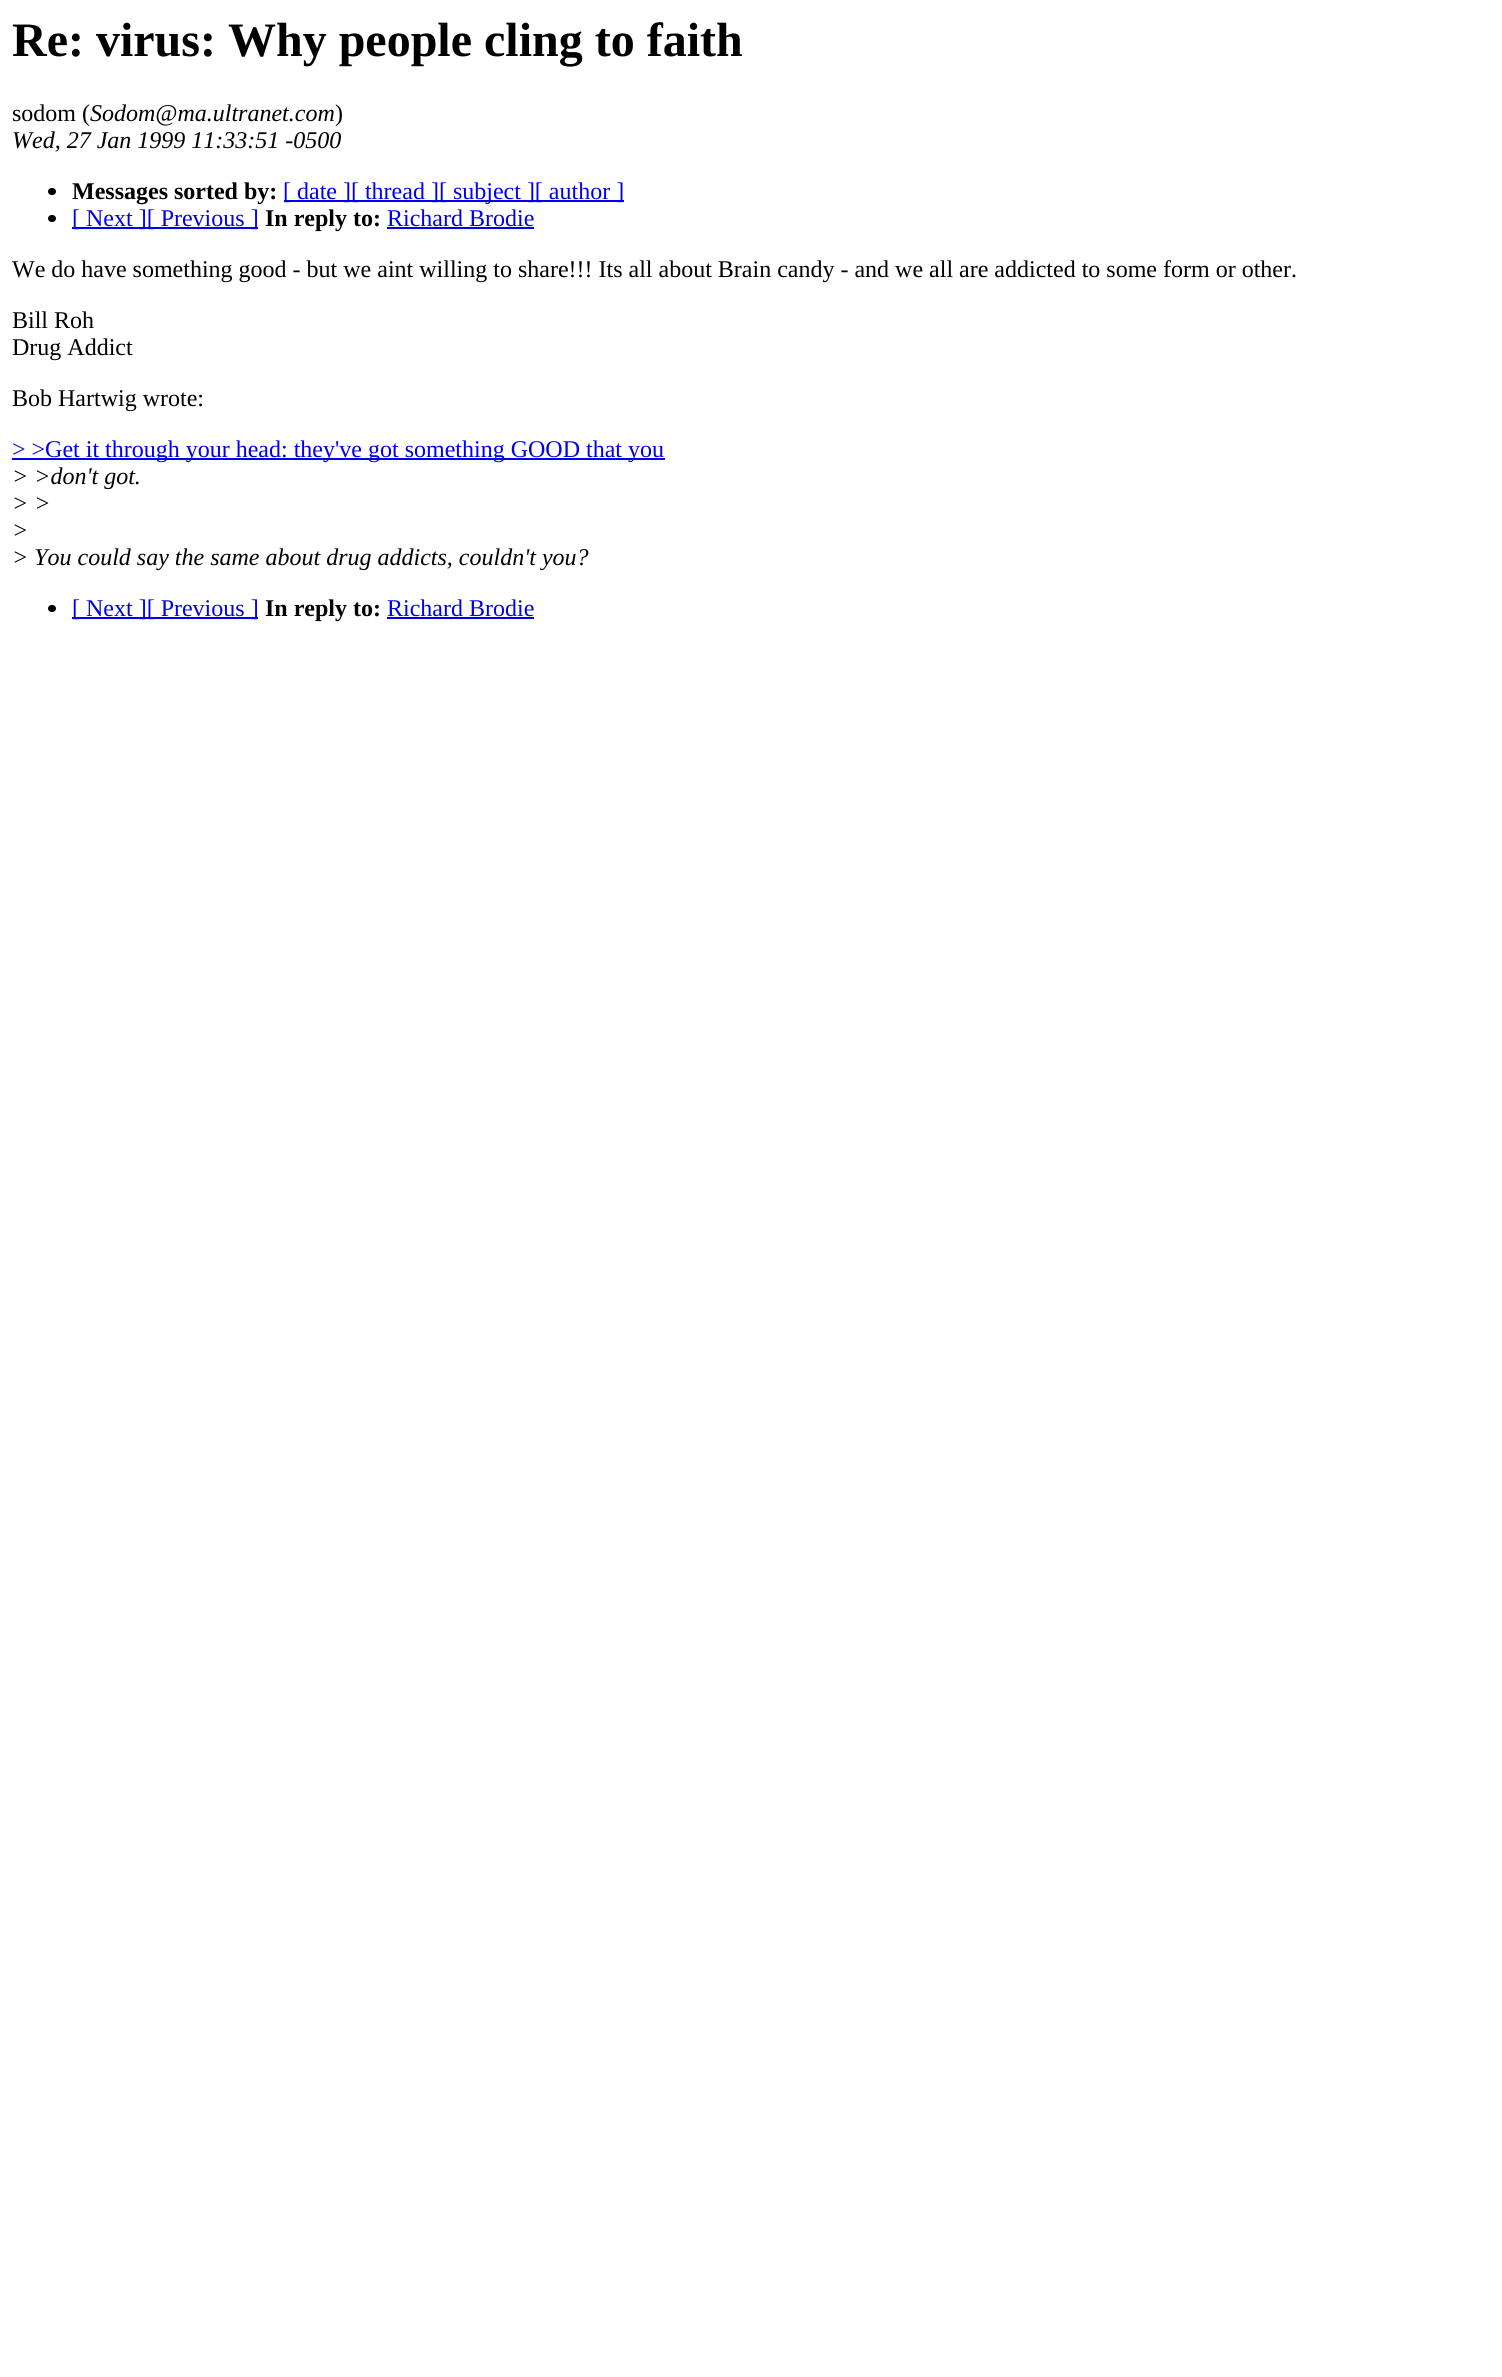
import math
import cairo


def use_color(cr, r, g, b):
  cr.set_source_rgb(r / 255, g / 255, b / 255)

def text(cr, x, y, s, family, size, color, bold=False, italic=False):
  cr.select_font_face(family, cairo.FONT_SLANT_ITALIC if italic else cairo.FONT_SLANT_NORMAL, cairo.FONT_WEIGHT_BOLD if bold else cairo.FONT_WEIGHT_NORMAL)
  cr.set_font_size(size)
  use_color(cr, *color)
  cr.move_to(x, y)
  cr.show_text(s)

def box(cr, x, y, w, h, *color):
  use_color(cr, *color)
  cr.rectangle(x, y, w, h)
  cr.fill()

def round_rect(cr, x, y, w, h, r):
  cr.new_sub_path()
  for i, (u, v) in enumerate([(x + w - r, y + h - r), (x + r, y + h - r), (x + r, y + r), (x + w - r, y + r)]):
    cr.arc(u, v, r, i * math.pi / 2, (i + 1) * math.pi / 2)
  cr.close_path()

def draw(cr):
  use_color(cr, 255, 255, 255)
  cr.paint()
  use_color(cr, 0, 0, 0)
  round_rect(cr, 48, 188, 8, 7, 3.5)
  cr.fill()
  box(cr, 284, 200, 340, 2, 0, 0, 238)
  use_color(cr, 0, 0, 0)
  round_rect(cr, 48, 215, 8, 7, 3.5)
  cr.fill()
  box(cr, 72, 227, 186, 2, 0, 0, 238)
  box(cr, 387, 227, 147, 2, 0, 0, 238)
  box(cr, 12, 458, 653, 2, 0, 0, 238)
  use_color(cr, 0, 0, 0)
  round_rect(cr, 48, 605, 8, 7, 3.5)
  cr.fill()
  box(cr, 72, 617, 186, 2, 0, 0, 238)
  box(cr, 387, 617, 147, 2, 0, 0, 238)
  text(cr, 12, 56, "Re: virus: Why people cling to faith", "Liberation Serif", 48, (0, 0, 0), bold=True)
  text(cr, 12, 121, "sodom (", "Liberation Serif", 24, (0, 0, 0))
  text(cr, 90, 121, "Sodom@ma.ultranet.com", "Liberation Serif", 24, (0, 0, 0), italic=True)
  text(cr, 335, 121, ")", "Liberation Serif", 24, (0, 0, 0))
  text(cr, 12, 148, "Wed, 27 Jan 1999 11:33:51 -0500", "Liberation Serif", 24, (0, 0, 0), italic=True)
  text(cr, 72, 199, "Messages sorted by:", "Liberation Serif", 24, (0, 0, 0), bold=True)
  text(cr, 283, 199, "[ date ][ thread ][ subject ][ author ]", "Liberation Serif", 24, (0, 0, 238))
  text(cr, 72, 226, "[ Next ][ Previous ]", "Liberation Serif", 24, (0, 0, 238))
  text(cr, 265, 226, "In reply to:", "Liberation Serif", 24, (0, 0, 0), bold=True)
  text(cr, 387, 226, "Richard Brodie", "Liberation Serif", 24, (0, 0, 238))
  text(cr, 12, 277, "We do have something good - but we aint willing to share!!! Its all about Brain candy - and we all are addicted to some form or other.", "Liberation Serif", 24, (0, 0, 0))
  text(cr, 12, 328, "Bill Roh", "Liberation Serif", 24, (0, 0, 0))
  text(cr, 12, 355, "Drug Addict", "Liberation Serif", 24, (0, 0, 0))
  text(cr, 12, 406, "Bob Hartwig wrote:", "Liberation Serif", 24, (0, 0, 0))
  text(cr, 12, 457, "> >Get it through your head: they've got something GOOD that you", "Liberation Serif", 24, (0, 0, 238))
  text(cr, 12, 484, "> >don't got.", "Liberation Serif", 24, (0, 0, 0), italic=True)
  text(cr, 12, 511, "> >", "Liberation Serif", 24, (0, 0, 0), italic=True)
  text(cr, 12, 538, ">", "Liberation Serif", 24, (0, 0, 0), italic=True)
  text(cr, 12, 565, "> You could say the same about drug addicts, couldn't you?", "Liberation Serif", 24, (0, 0, 0), italic=True)
  text(cr, 72, 616, "[ Next ][ Previous ]", "Liberation Serif", 24, (0, 0, 238))
  text(cr, 265, 616, "In reply to:", "Liberation Serif", 24, (0, 0, 0), bold=True)
  text(cr, 387, 616, "Richard Brodie", "Liberation Serif", 24, (0, 0, 238))


surface = cairo.ImageSurface(cairo.FORMAT_RGB24, 1502, 2377)
cr = cairo.Context(surface)
options = cairo.FontOptions()
options.set_hint_metrics(cairo.HINT_METRICS_OFF)
options.set_hint_style(cairo.HINT_STYLE_NONE)
cr.set_font_options(options)
cr.set_miter_limit(4)
draw(cr)
surface.write_to_png("out.png")
